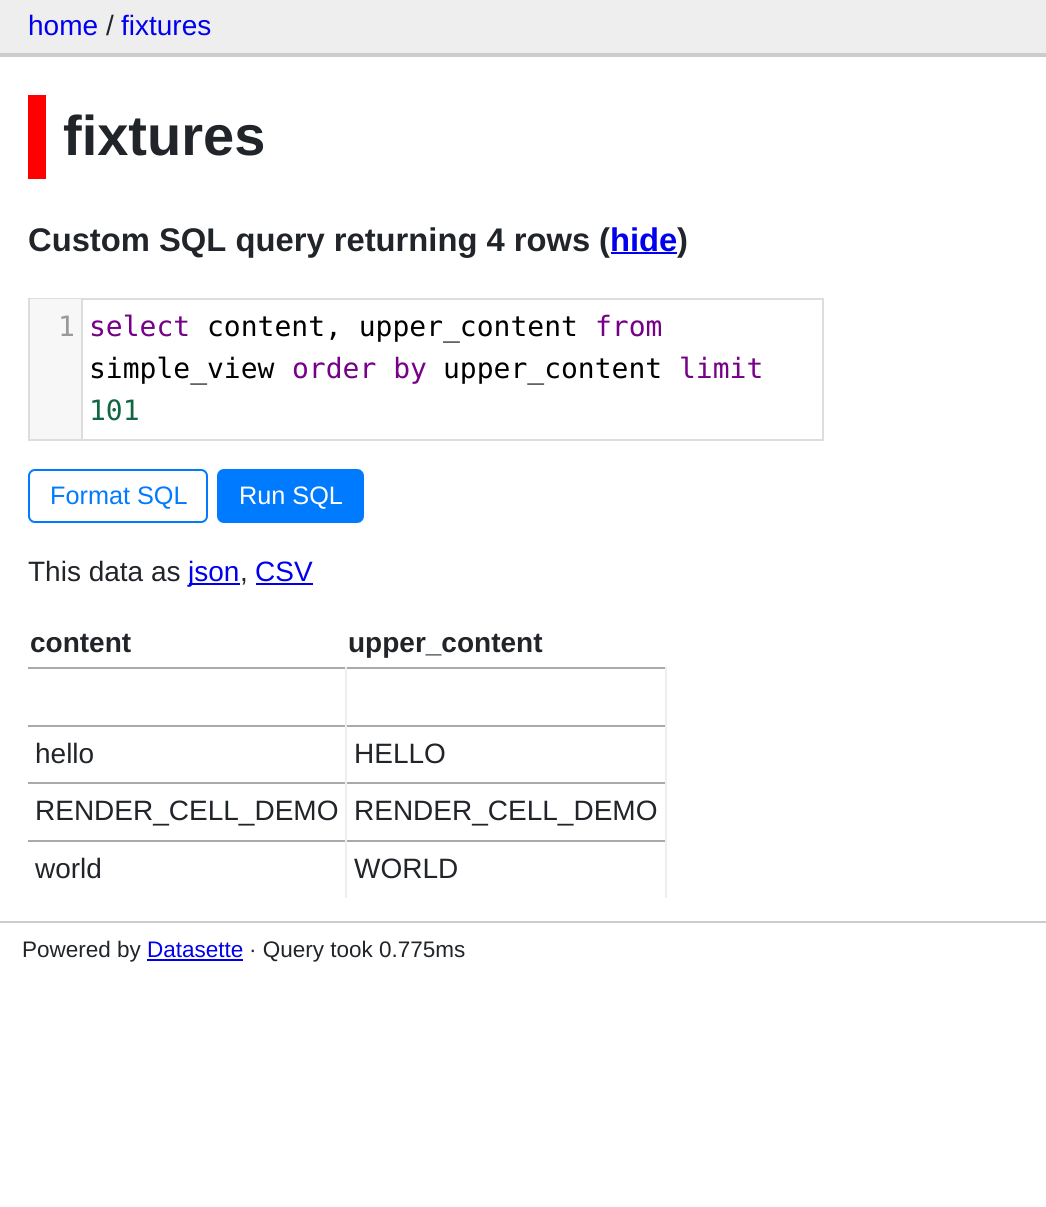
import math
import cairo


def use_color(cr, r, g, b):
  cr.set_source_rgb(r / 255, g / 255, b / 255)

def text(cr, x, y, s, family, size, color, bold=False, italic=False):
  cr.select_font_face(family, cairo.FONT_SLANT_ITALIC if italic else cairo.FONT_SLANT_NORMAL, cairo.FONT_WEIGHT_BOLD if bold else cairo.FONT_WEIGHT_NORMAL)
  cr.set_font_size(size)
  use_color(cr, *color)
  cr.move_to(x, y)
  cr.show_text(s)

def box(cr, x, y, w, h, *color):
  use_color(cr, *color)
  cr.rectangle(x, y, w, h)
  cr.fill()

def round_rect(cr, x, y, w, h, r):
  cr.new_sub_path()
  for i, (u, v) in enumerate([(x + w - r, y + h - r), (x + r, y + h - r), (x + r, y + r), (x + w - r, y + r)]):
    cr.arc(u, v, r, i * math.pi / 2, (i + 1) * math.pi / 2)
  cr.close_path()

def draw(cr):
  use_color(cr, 255, 255, 255)
  cr.paint()
  box(cr, 0, 0, 1046, 53, 238, 238, 238)
  box(cr, 0, 53, 1046, 4, 204, 204, 204)
  box(cr, 28, 95, 18, 84, 255, 0, 0)
  box(cr, 611, 252, 66, 2, 0, 0, 238)
  cr.rectangle(29, 299, 794, 141)
  use_color(cr, 221, 221, 221)
  cr.stroke()
  box(cr, 30, 299, 51, 140, 247, 247, 247)
  box(cr, 81, 299, 2, 140, 221, 221, 221)
  round_rect(cr, 29, 470, 178, 52, 6)
  use_color(cr, 0, 123, 255)
  cr.stroke()
  round_rect(cr, 218, 470, 145, 52, 6)
  cr.fill_preserve()
  cr.stroke()
  box(cr, 189, 583, 51, 2, 0, 0, 238)
  box(cr, 256, 583, 57, 2, 0, 0, 238)
  box(cr, 28, 667, 639, 2, 170, 170, 170)
  box(cr, 28, 725, 639, 2, 170, 170, 170)
  box(cr, 28, 782, 639, 2, 170, 170, 170)
  box(cr, 28, 840, 639, 2, 170, 170, 170)
  box(cr, 665, 840, 2, 58, 238, 238, 238)
  box(cr, 665, 782, 2, 60, 238, 238, 238)
  box(cr, 665, 725, 2, 59, 238, 238, 238)
  box(cr, 665, 667, 2, 59, 238, 238, 238)
  box(cr, 345, 840, 2, 58, 238, 238, 238)
  box(cr, 345, 782, 2, 60, 238, 238, 238)
  box(cr, 345, 725, 2, 59, 238, 238, 238)
  box(cr, 345, 667, 2, 59, 238, 238, 238)
  box(cr, 0, 921, 1046, 2, 204, 204, 204)
  box(cr, 147, 959, 96, 2, 0, 0, 238)
  text(cr, 28, 35, "home", "Liberation Sans", 28, (0, 0, 238))
  text(cr, 106, 35, "/", "Liberation Sans", 28, (33, 37, 41))
  text(cr, 121, 35, "fixtures", "Liberation Sans", 28, (0, 0, 238))
  text(cr, 63, 155, "fixtures", "Liberation Sans", 56, (33, 37, 41), bold=True)
  text(cr, 28, 251, "Custom SQL query returning 4 rows", "Liberation Sans", 32.75, (33, 37, 41), bold=True)
  text(cr, 599, 251, "(", "Liberation Sans", 32.75, (33, 37, 41), bold=True)
  text(cr, 610, 251, "hide", "Liberation Sans", 32.75, (0, 0, 238), bold=True)
  text(cr, 677, 251, ")", "Liberation Sans", 32.75, (33, 37, 41), bold=True)
  text(cr, 58, 336, "1", "DejaVu Sans Mono", 28, (153, 153, 153))
  text(cr, 89, 336, "select", "DejaVu Sans Mono", 28, (119, 0, 136))
  text(cr, 207, 336, "content, upper_content", "DejaVu Sans Mono", 28, (0, 0, 0))
  text(cr, 595, 336, "from", "DejaVu Sans Mono", 28, (119, 0, 136))
  text(cr, 89, 378, "simple_view", "DejaVu Sans Mono", 28, (0, 0, 0))
  text(cr, 292, 378, "order by", "DejaVu Sans Mono", 28, (119, 0, 136))
  text(cr, 443, 378, "upper_content", "DejaVu Sans Mono", 28, (0, 0, 0))
  text(cr, 679, 378, "limit", "DejaVu Sans Mono", 28, (119, 0, 136))
  text(cr, 89, 420, "101", "DejaVu Sans Mono", 28, (17, 102, 68))
  text(cr, 50, 504, "Format SQL", "Liberation Sans", 25.25, (0, 123, 255))
  text(cr, 239, 504, "Run SQL", "Liberation Sans", 25.25, (255, 255, 255))
  text(cr, 28, 581, "This data as", "Liberation Sans", 28, (33, 37, 41))
  text(cr, 188, 581, "json", "Liberation Sans", 28, (0, 0, 238))
  text(cr, 240, 581, ",", "Liberation Sans", 28, (33, 37, 41))
  text(cr, 255, 581, "CSV", "Liberation Sans", 28, (0, 0, 238))
  text(cr, 30, 652, "content", "Liberation Sans", 28, (33, 37, 41), bold=True)
  text(cr, 348, 652, "upper_content", "Liberation Sans", 28, (33, 37, 41), bold=True)
  text(cr, 35, 763, "hello", "Liberation Sans", 28, (33, 37, 41))
  text(cr, 354, 763, "HELLO", "Liberation Sans", 28, (33, 37, 41))
  text(cr, 35, 820, "RENDER_CELL_DEMO", "Liberation Sans", 28, (33, 37, 41))
  text(cr, 354, 820, "RENDER_CELL_DEMO", "Liberation Sans", 28, (33, 37, 41))
  text(cr, 35, 878, "world", "Liberation Sans", 28, (33, 37, 41))
  text(cr, 354, 878, "WORLD", "Liberation Sans", 28, (33, 37, 41))
  text(cr, 22, 957, "Powered by", "Liberation Sans", 22.5, (33, 37, 41))
  text(cr, 147, 957, "Datasette", "Liberation Sans", 22.5, (0, 0, 238))
  text(cr, 249, 957, "· Query took 0.775ms", "Liberation Sans", 22.5, (33, 37, 41))


surface = cairo.ImageSurface(cairo.FORMAT_RGB24, 1046, 1207)
cr = cairo.Context(surface)
options = cairo.FontOptions()
options.set_hint_metrics(cairo.HINT_METRICS_OFF)
options.set_hint_style(cairo.HINT_STYLE_NONE)
cr.set_font_options(options)
cr.set_miter_limit(4)
draw(cr)
surface.write_to_png("out.png")
